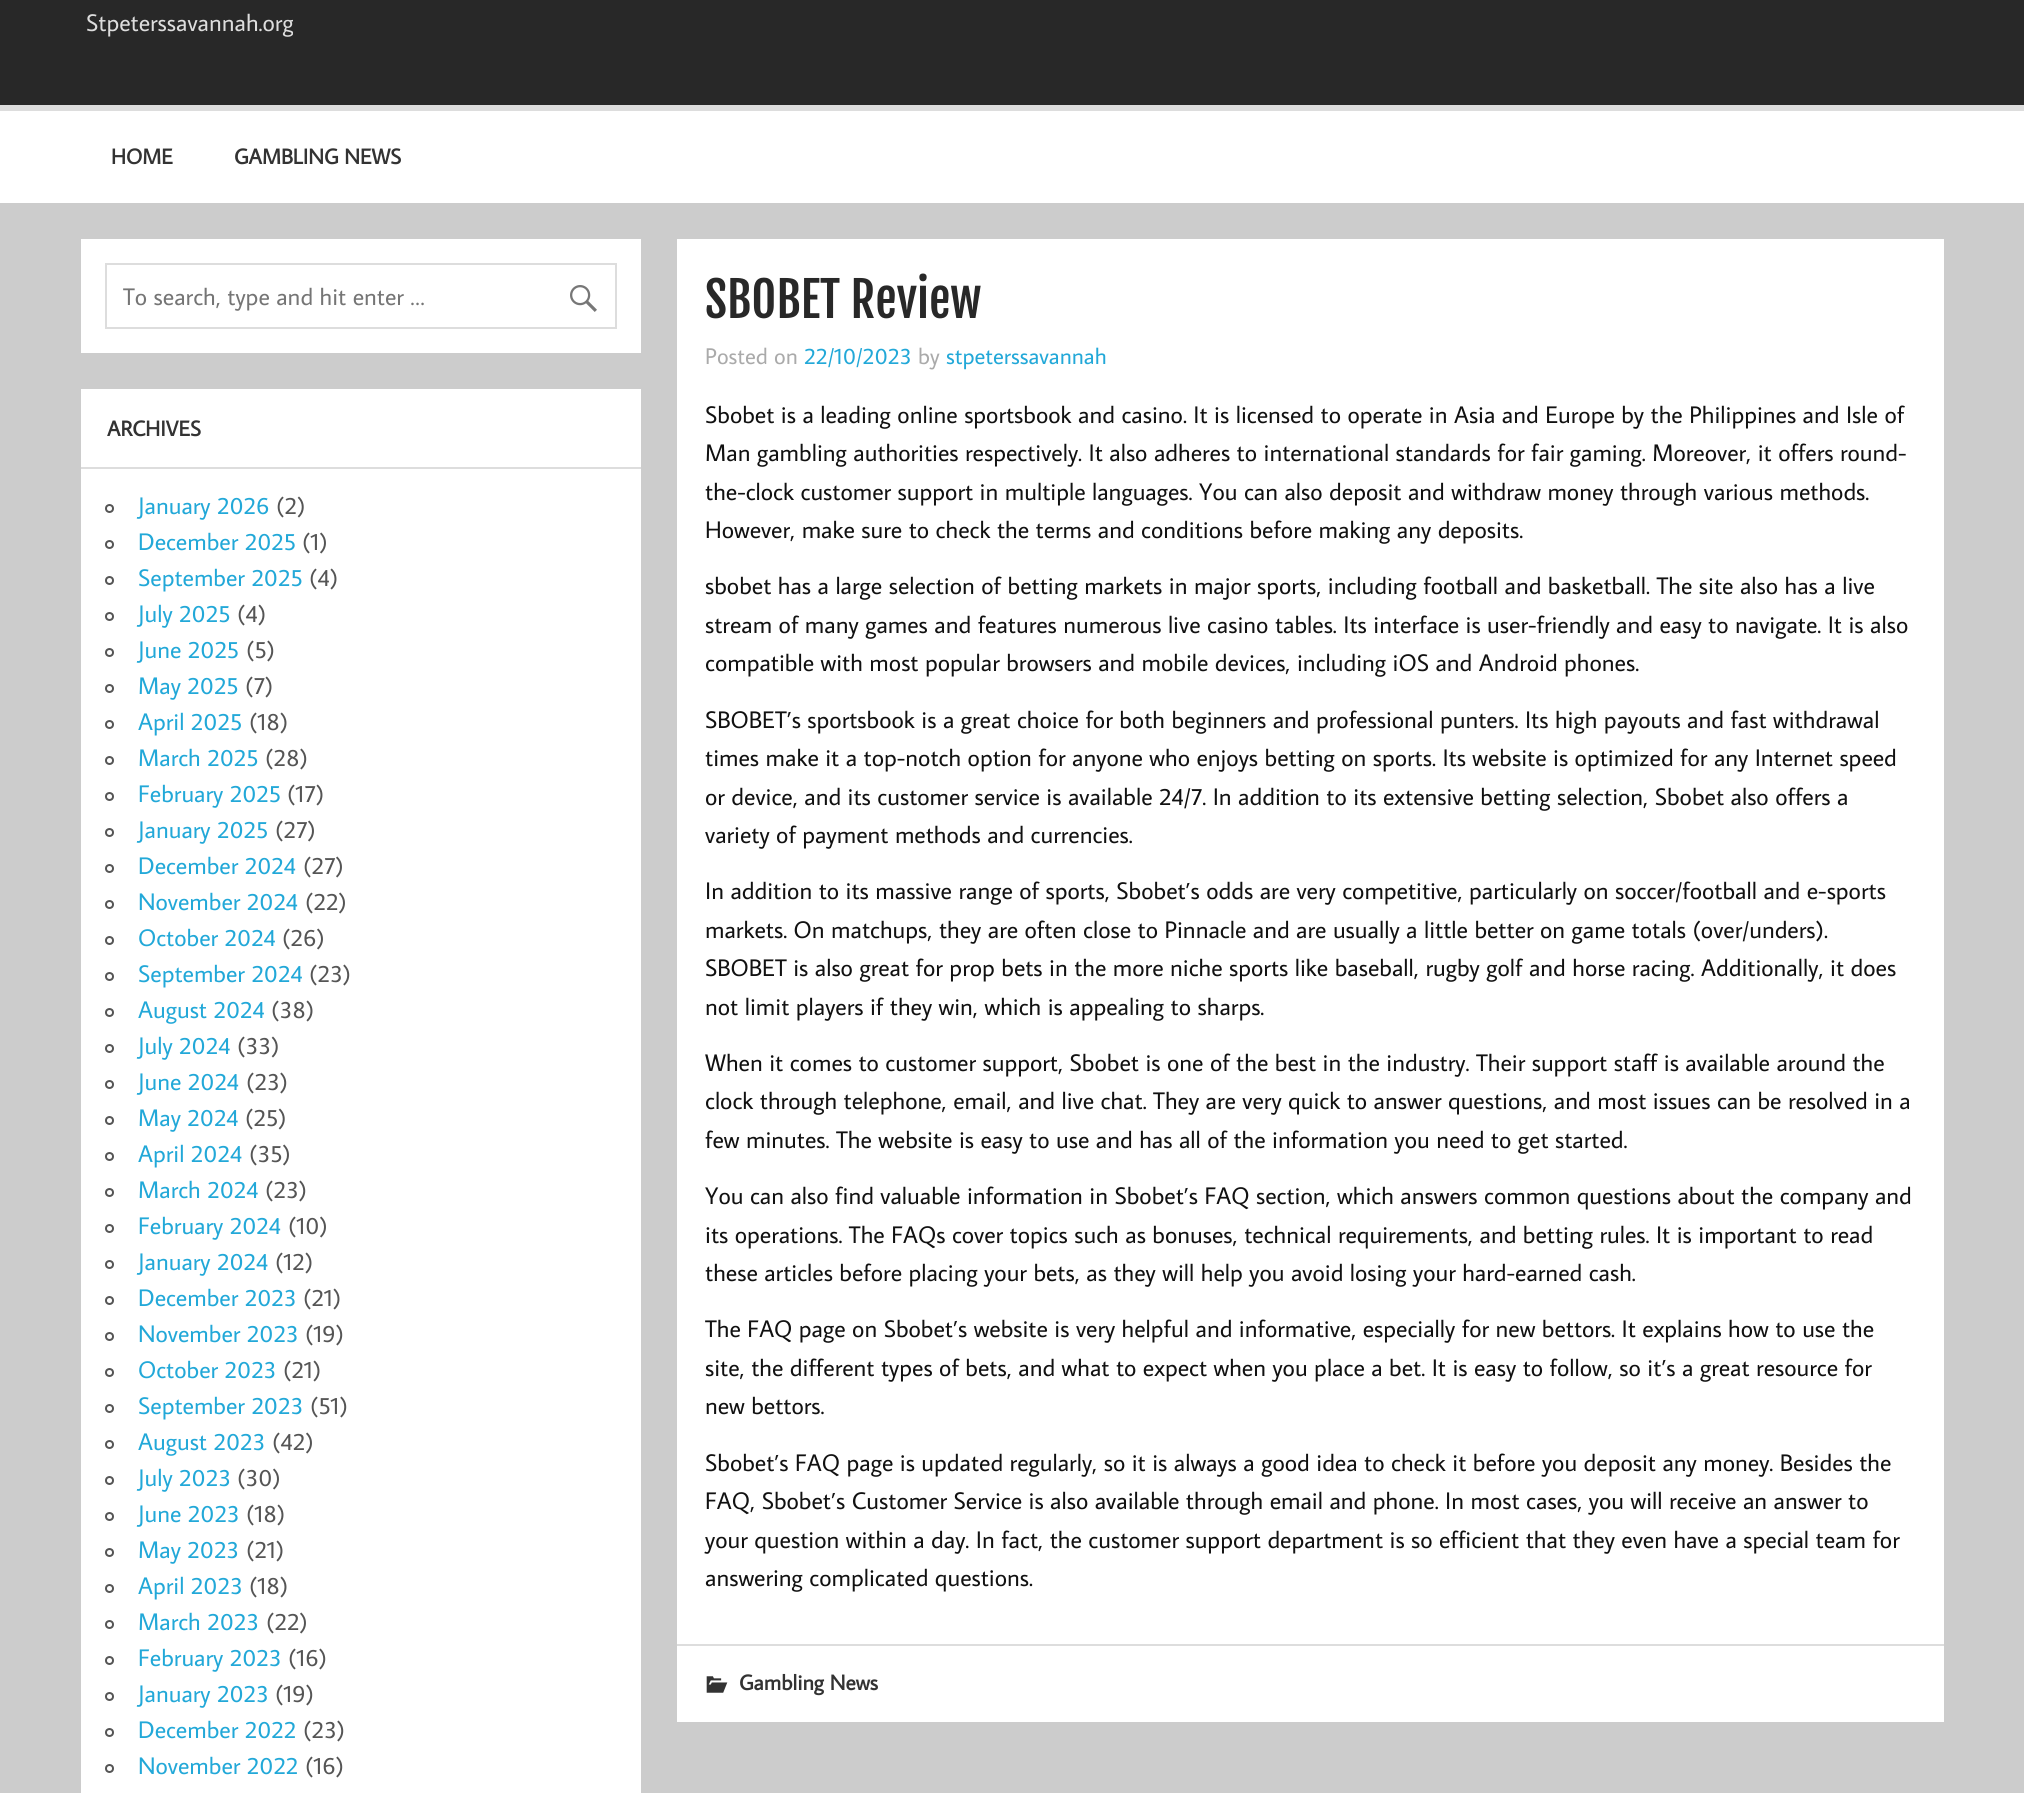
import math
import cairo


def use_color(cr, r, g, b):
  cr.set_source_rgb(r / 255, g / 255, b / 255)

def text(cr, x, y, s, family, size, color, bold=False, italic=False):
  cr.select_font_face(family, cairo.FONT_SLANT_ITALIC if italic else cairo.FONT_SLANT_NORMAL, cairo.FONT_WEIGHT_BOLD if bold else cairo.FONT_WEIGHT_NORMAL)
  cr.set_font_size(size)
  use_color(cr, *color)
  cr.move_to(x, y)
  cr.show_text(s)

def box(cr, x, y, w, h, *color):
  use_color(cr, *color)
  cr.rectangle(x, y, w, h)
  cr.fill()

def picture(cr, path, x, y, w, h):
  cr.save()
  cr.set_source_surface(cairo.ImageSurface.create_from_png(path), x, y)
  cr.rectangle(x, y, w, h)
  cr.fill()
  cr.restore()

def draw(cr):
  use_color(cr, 204, 204, 204)
  cr.paint()
  box(cr, 0, 0, 2024, 105, 40, 40, 40)
  box(cr, 0, 111, 2024, 92, 255, 255, 255)
  box(cr, 0, 105, 2024, 6, 221, 221, 221)
  box(cr, 81, 239, 560, 114, 255, 255, 255)
  cr.rectangle(106, 264, 510, 64)
  use_color(cr, 221, 221, 221)
  cr.stroke()
  picture(cr, "img_01.png", 570, 285, 27, 27)
  box(cr, 81, 389, 560, 1404, 255, 255, 255)
  box(cr, 81, 467, 560, 2, 221, 221, 221)
  cr.arc(109.5, 508.5, 3.5, 0, 2 * math.pi)
  use_color(cr, 85, 85, 85)
  cr.stroke()
  cr.arc(109.5, 544.5, 3.5, 0, 2 * math.pi)
  cr.stroke()
  cr.arc(109.5, 580.5, 3.5, 0, 2 * math.pi)
  cr.stroke()
  cr.arc(109.5, 616.5, 3.5, 0, 2 * math.pi)
  cr.stroke()
  cr.arc(109.5, 652.5, 3.5, 0, 2 * math.pi)
  cr.stroke()
  cr.arc(109.5, 688.5, 3.5, 0, 2 * math.pi)
  cr.stroke()
  cr.arc(109.5, 724.5, 3.5, 0, 2 * math.pi)
  cr.stroke()
  cr.arc(109.5, 760.5, 3.5, 0, 2 * math.pi)
  cr.stroke()
  cr.arc(109.5, 796.5, 3.5, 0, 2 * math.pi)
  cr.stroke()
  cr.arc(109.5, 832.5, 3.5, 0, 2 * math.pi)
  cr.stroke()
  cr.arc(109.5, 868.5, 3.5, 0, 2 * math.pi)
  cr.stroke()
  cr.arc(109.5, 904.5, 3.5, 0, 2 * math.pi)
  cr.stroke()
  cr.arc(109.5, 940.5, 3.5, 0, 2 * math.pi)
  cr.stroke()
  cr.arc(109.5, 976.5, 3.5, 0, 2 * math.pi)
  cr.stroke()
  cr.arc(109.5, 1012.5, 3.5, 0, 2 * math.pi)
  cr.stroke()
  cr.arc(109.5, 1048.5, 3.5, 0, 2 * math.pi)
  cr.stroke()
  cr.arc(109.5, 1084.5, 3.5, 0, 2 * math.pi)
  cr.stroke()
  cr.arc(109.5, 1120.5, 3.5, 0, 2 * math.pi)
  cr.stroke()
  cr.arc(109.5, 1156.5, 3.5, 0, 2 * math.pi)
  cr.stroke()
  cr.arc(109.5, 1192.5, 3.5, 0, 2 * math.pi)
  cr.stroke()
  cr.arc(109.5, 1228.5, 3.5, 0, 2 * math.pi)
  cr.stroke()
  cr.arc(109.5, 1264.5, 3.5, 0, 2 * math.pi)
  cr.stroke()
  cr.arc(109.5, 1300.5, 3.5, 0, 2 * math.pi)
  cr.stroke()
  cr.arc(109.5, 1336.5, 3.5, 0, 2 * math.pi)
  cr.stroke()
  cr.arc(109.5, 1372.5, 3.5, 0, 2 * math.pi)
  cr.stroke()
  cr.arc(109.5, 1408.5, 3.5, 0, 2 * math.pi)
  cr.stroke()
  cr.arc(109.5, 1444.5, 3.5, 0, 2 * math.pi)
  cr.stroke()
  cr.arc(109.5, 1480.5, 3.5, 0, 2 * math.pi)
  cr.stroke()
  cr.arc(109.5, 1516.5, 3.5, 0, 2 * math.pi)
  cr.stroke()
  cr.arc(109.5, 1552.5, 3.5, 0, 2 * math.pi)
  cr.stroke()
  cr.arc(109.5, 1588.5, 3.5, 0, 2 * math.pi)
  cr.stroke()
  cr.arc(109.5, 1624.5, 3.5, 0, 2 * math.pi)
  cr.stroke()
  cr.arc(109.5, 1660.5, 3.5, 0, 2 * math.pi)
  cr.stroke()
  cr.arc(109.5, 1696.5, 3.5, 0, 2 * math.pi)
  cr.stroke()
  cr.arc(109.5, 1732.5, 3.5, 0, 2 * math.pi)
  cr.stroke()
  cr.arc(109.5, 1768.5, 3.5, 0, 2 * math.pi)
  cr.stroke()
  box(cr, 677, 239, 1267, 1483, 255, 255, 255)
  box(cr, 677, 1644, 1267, 2, 221, 221, 221)
  picture(cr, "img_02.png", 706, 1676, 22, 17)
  text(cr, 86, 31, "Stpeterssavannah.org", "Average Sans", 24, (221, 221, 221))
  text(cr, 111, 164, "HOME", "Average Sans", 21.5, (51, 51, 51), bold=True)
  text(cr, 234, 164, "GAMBLING NEWS", "Average Sans", 21.5, (51, 51, 51), bold=True)
  text(cr, 123, 305, "To search, type and hit enter …", "Average Sans", 24, (117, 117, 117))
  text(cr, 107, 436, "ARCHIVES", "Average Sans", 21.5, (51, 51, 51), bold=True)
  text(cr, 138, 514, "January 2026", "Average Sans", 24, (34, 168, 216))
  text(cr, 276, 514, "(2)", "Average Sans", 24, (85, 85, 85))
  text(cr, 138, 550, "December 2025", "Average Sans", 24, (34, 168, 216))
  text(cr, 302, 550, "(1)", "Average Sans", 24, (85, 85, 85))
  text(cr, 138, 586, "September 2025", "Average Sans", 24, (34, 168, 216))
  text(cr, 309, 586, "(4)", "Average Sans", 24, (85, 85, 85))
  text(cr, 138, 622, "July 2025", "Average Sans", 24, (34, 168, 216))
  text(cr, 237, 622, "(4)", "Average Sans", 24, (85, 85, 85))
  text(cr, 138, 658, "June 2025", "Average Sans", 24, (34, 168, 216))
  text(cr, 246, 658, "(5)", "Average Sans", 24, (85, 85, 85))
  text(cr, 138, 694, "May 2025", "Average Sans", 24, (34, 168, 216))
  text(cr, 245, 694, "(7)", "Average Sans", 24, (85, 85, 85))
  text(cr, 138, 730, "April 2025", "Average Sans", 24, (34, 168, 216))
  text(cr, 249, 730, "(18)", "Average Sans", 24, (85, 85, 85))
  text(cr, 138, 766, "March 2025", "Average Sans", 24, (34, 168, 216))
  text(cr, 265, 766, "(28)", "Average Sans", 24, (85, 85, 85))
  text(cr, 138, 802, "February 2025", "Average Sans", 24, (34, 168, 216))
  text(cr, 287, 802, "(17)", "Average Sans", 24, (85, 85, 85))
  text(cr, 138, 838, "January 2025", "Average Sans", 24, (34, 168, 216))
  text(cr, 275, 838, "(27)", "Average Sans", 24, (85, 85, 85))
  text(cr, 138, 874, "December 2024", "Average Sans", 24, (34, 168, 216))
  text(cr, 303, 874, "(27)", "Average Sans", 24, (85, 85, 85))
  text(cr, 138, 910, "November 2024", "Average Sans", 24, (34, 168, 216))
  text(cr, 305, 910, "(22)", "Average Sans", 24, (85, 85, 85))
  text(cr, 138, 946, "October 2024", "Average Sans", 24, (34, 168, 216))
  text(cr, 282, 946, "(26)", "Average Sans", 24, (85, 85, 85))
  text(cr, 138, 982, "September 2024", "Average Sans", 24, (34, 168, 216))
  text(cr, 309, 982, "(23)", "Average Sans", 24, (85, 85, 85))
  text(cr, 138, 1018, "August 2024", "Average Sans", 24, (34, 168, 216))
  text(cr, 271, 1018, "(38)", "Average Sans", 24, (85, 85, 85))
  text(cr, 138, 1054, "July 2024", "Average Sans", 24, (34, 168, 216))
  text(cr, 237, 1054, "(33)", "Average Sans", 24, (85, 85, 85))
  text(cr, 138, 1090, "June 2024", "Average Sans", 24, (34, 168, 216))
  text(cr, 246, 1090, "(23)", "Average Sans", 24, (85, 85, 85))
  text(cr, 138, 1126, "May 2024", "Average Sans", 24, (34, 168, 216))
  text(cr, 245, 1126, "(25)", "Average Sans", 24, (85, 85, 85))
  text(cr, 138, 1162, "April 2024", "Average Sans", 24, (34, 168, 216))
  text(cr, 249, 1162, "(35)", "Average Sans", 24, (85, 85, 85))
  text(cr, 138, 1198, "March 2024", "Average Sans", 24, (34, 168, 216))
  text(cr, 265, 1198, "(23)", "Average Sans", 24, (85, 85, 85))
  text(cr, 138, 1234, "February 2024", "Average Sans", 24, (34, 168, 216))
  text(cr, 288, 1234, "(10)", "Average Sans", 24, (85, 85, 85))
  text(cr, 138, 1270, "January 2024", "Average Sans", 24, (34, 168, 216))
  text(cr, 275, 1270, "(12)", "Average Sans", 24, (85, 85, 85))
  text(cr, 138, 1306, "December 2023", "Average Sans", 24, (34, 168, 216))
  text(cr, 303, 1306, "(21)", "Average Sans", 24, (85, 85, 85))
  text(cr, 138, 1342, "November 2023", "Average Sans", 24, (34, 168, 216))
  text(cr, 305, 1342, "(19)", "Average Sans", 24, (85, 85, 85))
  text(cr, 138, 1378, "October 2023", "Average Sans", 24, (34, 168, 216))
  text(cr, 283, 1378, "(21)", "Average Sans", 24, (85, 85, 85))
  text(cr, 138, 1414, "September 2023", "Average Sans", 24, (34, 168, 216))
  text(cr, 310, 1414, "(51)", "Average Sans", 24, (85, 85, 85))
  text(cr, 138, 1450, "August 2023", "Average Sans", 24, (34, 168, 216))
  text(cr, 272, 1450, "(42)", "Average Sans", 24, (85, 85, 85))
  text(cr, 138, 1486, "July 2023", "Average Sans", 24, (34, 168, 216))
  text(cr, 237, 1486, "(30)", "Average Sans", 24, (85, 85, 85))
  text(cr, 138, 1522, "June 2023", "Average Sans", 24, (34, 168, 216))
  text(cr, 246, 1522, "(18)", "Average Sans", 24, (85, 85, 85))
  text(cr, 138, 1558, "May 2023", "Average Sans", 24, (34, 168, 216))
  text(cr, 246, 1558, "(21)", "Average Sans", 24, (85, 85, 85))
  text(cr, 138, 1594, "April 2023", "Average Sans", 24, (34, 168, 216))
  text(cr, 249, 1594, "(18)", "Average Sans", 24, (85, 85, 85))
  text(cr, 138, 1630, "March 2023", "Average Sans", 24, (34, 168, 216))
  text(cr, 266, 1630, "(22)", "Average Sans", 24, (85, 85, 85))
  text(cr, 138, 1666, "February 2023", "Average Sans", 24, (34, 168, 216))
  text(cr, 288, 1666, "(16)", "Average Sans", 24, (85, 85, 85))
  text(cr, 138, 1702, "January 2023", "Average Sans", 24, (34, 168, 216))
  text(cr, 275, 1702, "(19)", "Average Sans", 24, (85, 85, 85))
  text(cr, 138, 1738, "December 2022", "Average Sans", 24, (34, 168, 216))
  text(cr, 303, 1738, "(23)", "Average Sans", 24, (85, 85, 85))
  text(cr, 138, 1774, "November 2022", "Average Sans", 24, (34, 168, 216))
  text(cr, 305, 1774, "(16)", "Average Sans", 24, (85, 85, 85))
  text(cr, 705, 318, "SBOBET Review", "Fjalla One", 48, (40, 40, 40))
  text(cr, 705, 364, "Posted on", "Average Sans", 22.75, (170, 170, 170))
  text(cr, 804, 364, "22/10/2023", "Average Sans", 22.75, (34, 168, 216))
  text(cr, 918, 364, "by", "Average Sans", 22.75, (170, 170, 170))
  text(cr, 946, 364, "stpeterssavannah", "Average Sans", 22.75, (34, 168, 216))
  text(cr, 705, 423, "Sbobet is a leading online sportsbook and casino. It is licensed to operate in Asia and Europe by the Philippines and Isle of", "Average Sans", 24, (17, 17, 17))
  text(cr, 705, 461, "Man gambling authorities respectively. It also adheres to international standards for fair gaming. Moreover, it offers round-", "Average Sans", 24, (17, 17, 17))
  text(cr, 705, 500, "the-clock customer support in multiple languages. You can also deposit and withdraw money through various methods.", "Average Sans", 24, (17, 17, 17))
  text(cr, 705, 538, "However, make sure to check the terms and conditions before making any deposits.", "Average Sans", 24, (17, 17, 17))
  text(cr, 705, 594, "sbobet has a large selection of betting markets in major sports, including football and basketball. The site also has a live", "Average Sans", 24, (17, 17, 17))
  text(cr, 705, 633, "stream of many games and features numerous live casino tables. Its interface is user-friendly and easy to navigate. It is also", "Average Sans", 24, (17, 17, 17))
  text(cr, 705, 671, "compatible with most popular browsers and mobile devices, including iOS and Android phones.", "Average Sans", 24, (17, 17, 17))
  text(cr, 705, 728, "SBOBET’s sportsbook is a great choice for both beginners and professional punters. Its high payouts and fast withdrawal", "Average Sans", 24, (17, 17, 17))
  text(cr, 705, 766, "times make it a top-notch option for anyone who enjoys betting on sports. Its website is optimized for any Internet speed", "Average Sans", 24, (17, 17, 17))
  text(cr, 705, 805, "or device, and its customer service is available 24/7. In addition to its extensive betting selection, Sbobet also offers a", "Average Sans", 24, (17, 17, 17))
  text(cr, 705, 843, "variety of payment methods and currencies.", "Average Sans", 24, (17, 17, 17))
  text(cr, 705, 899, "In addition to its massive range of sports, Sbobet’s odds are very competitive, particularly on soccer/football and e-sports", "Average Sans", 24, (17, 17, 17))
  text(cr, 705, 938, "markets. On matchups, they are often close to Pinnacle and are usually a little better on game totals (over/unders).", "Average Sans", 24, (17, 17, 17))
  text(cr, 705, 976, "SBOBET is also great for prop bets in the more niche sports like baseball, rugby golf and horse racing. Additionally, it does", "Average Sans", 24, (17, 17, 17))
  text(cr, 705, 1015, "not limit players if they win, which is appealing to sharps.", "Average Sans", 24, (17, 17, 17))
  text(cr, 705, 1071, "When it comes to customer support, Sbobet is one of the best in the industry. Their support staff is available around the", "Average Sans", 24, (17, 17, 17))
  text(cr, 705, 1109, "clock through telephone, email, and live chat. They are very quick to answer questions, and most issues can be resolved in a", "Average Sans", 24, (17, 17, 17))
  text(cr, 705, 1148, "few minutes. The website is easy to use and has all of the information you need to get started.", "Average Sans", 24, (17, 17, 17))
  text(cr, 705, 1204, "You can also find valuable information in Sbobet’s FAQ section, which answers common questions about the company and", "Average Sans", 24, (17, 17, 17))
  text(cr, 705, 1243, "its operations. The FAQs cover topics such as bonuses, technical requirements, and betting rules. It is important to read", "Average Sans", 24, (17, 17, 17))
  text(cr, 705, 1281, "these articles before placing your bets, as they will help you avoid losing your hard-earned cash.", "Average Sans", 24, (17, 17, 17))
  text(cr, 705, 1337, "The FAQ page on Sbobet’s website is very helpful and informative, especially for new bettors. It explains how to use the", "Average Sans", 24, (17, 17, 17))
  text(cr, 705, 1376, "site, the different types of bets, and what to expect when you place a bet. It is easy to follow, so it’s a great resource for", "Average Sans", 24, (17, 17, 17))
  text(cr, 705, 1414, "new bettors.", "Average Sans", 24, (17, 17, 17))
  text(cr, 705, 1471, "Sbobet’s FAQ page is updated regularly, so it is always a good idea to check it before you deposit any money. Besides the", "Average Sans", 24, (17, 17, 17))
  text(cr, 705, 1509, "FAQ, Sbobet’s Customer Service is also available through email and phone. In most cases, you will receive an answer to", "Average Sans", 24, (17, 17, 17))
  text(cr, 705, 1548, "your question within a day. In fact, the customer support department is so efficient that they even have a special team for", "Average Sans", 24, (17, 17, 17))
  text(cr, 705, 1586, "answering complicated questions.", "Average Sans", 24, (17, 17, 17))
  text(cr, 739, 1690, "Gambling News", "Average Sans", 21.5, (51, 51, 51), bold=True)


surface = cairo.ImageSurface(cairo.FORMAT_RGB24, 2024, 1793)
cr = cairo.Context(surface)
options = cairo.FontOptions()
options.set_hint_metrics(cairo.HINT_METRICS_OFF)
options.set_hint_style(cairo.HINT_STYLE_NONE)
cr.set_font_options(options)
cr.set_miter_limit(4)
draw(cr)
surface.write_to_png("out.png")
